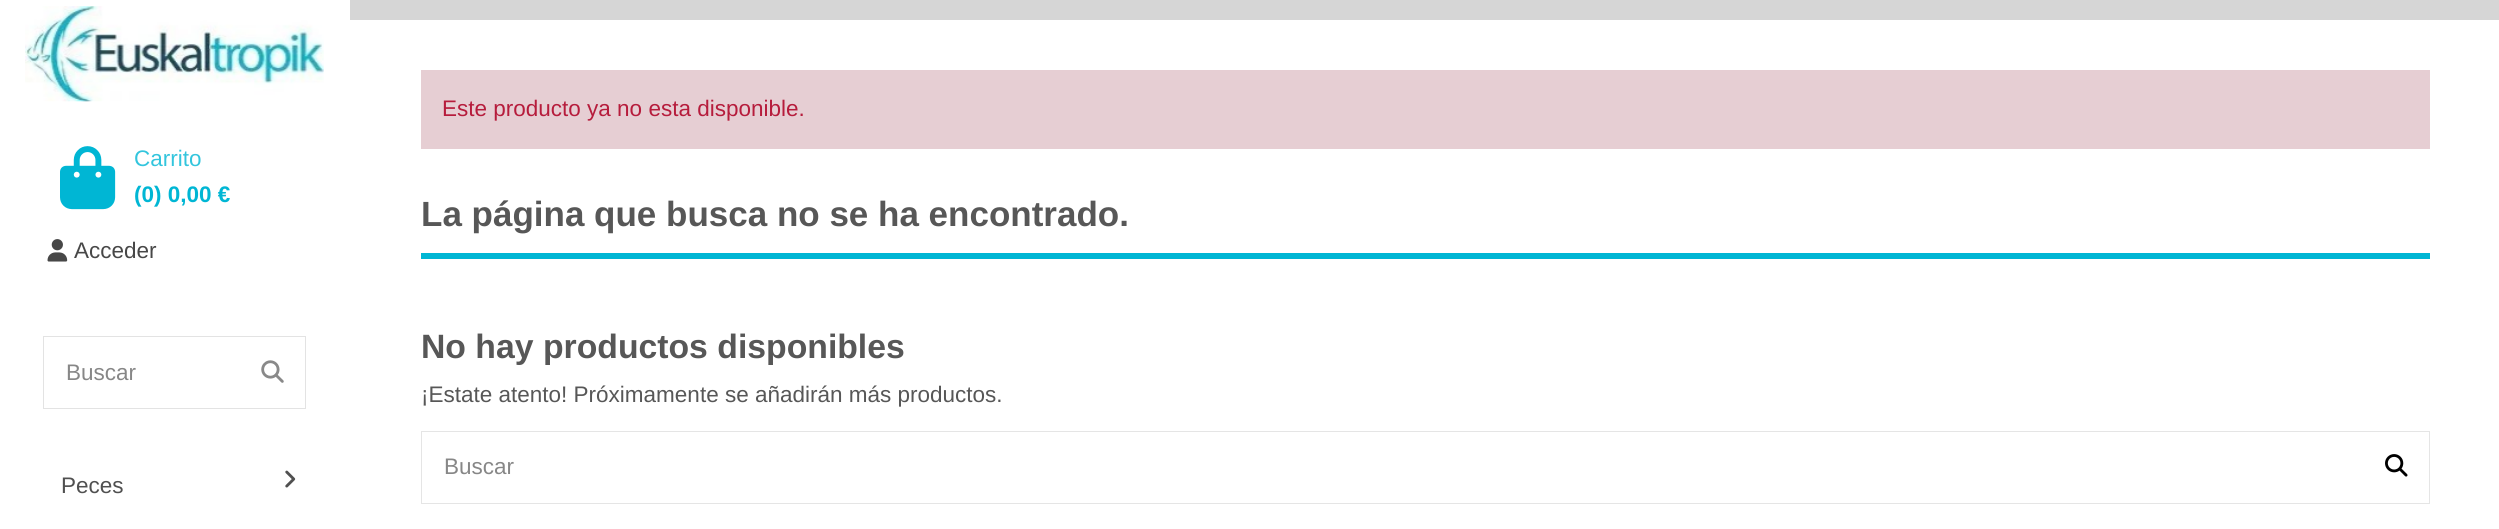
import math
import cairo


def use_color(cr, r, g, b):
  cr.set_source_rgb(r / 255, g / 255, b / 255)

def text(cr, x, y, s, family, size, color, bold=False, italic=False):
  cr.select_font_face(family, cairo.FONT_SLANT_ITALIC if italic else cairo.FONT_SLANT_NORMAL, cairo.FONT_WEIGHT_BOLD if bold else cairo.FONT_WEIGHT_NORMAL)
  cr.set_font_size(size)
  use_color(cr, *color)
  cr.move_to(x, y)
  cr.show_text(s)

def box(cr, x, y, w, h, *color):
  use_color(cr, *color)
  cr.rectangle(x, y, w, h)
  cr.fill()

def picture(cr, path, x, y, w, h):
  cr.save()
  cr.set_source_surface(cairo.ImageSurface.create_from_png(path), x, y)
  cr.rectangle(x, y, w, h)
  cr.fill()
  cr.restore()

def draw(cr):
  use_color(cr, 255, 255, 255)
  cr.paint()
  picture(cr, "img_01.png", 25, 6, 299, 96)
  picture(cr, "img_02.png", 60, 146, 56, 64)
  picture(cr, "img_03.png", 47, 239, 21, 23)
  cr.rectangle(43.5, 336.5, 262, 72)
  use_color(cr, 227, 227, 227)
  cr.set_line_width(1)
  cr.stroke()
  picture(cr, "img_04.png", 261, 360, 23, 23)
  picture(cr, "img_05.png", 285, 470, 11, 18)
  box(cr, 350, 0, 2149, 20, 214, 214, 214)
  box(cr, 421, 70, 2009, 79, 230, 206, 211)
  box(cr, 421, 253, 2009, 6, 0, 182, 212)
  cr.rectangle(421.5, 431.5, 2008, 72)
  use_color(cr, 229, 229, 229)
  cr.stroke()
  picture(cr, "img_06.png", 2385, 454, 23, 23)
  text(cr, 134, 166, "Carrito", "Liberation Sans", 22.5, (51, 197, 221))
  text(cr, 134, 202, "(0) 0,00 €", "Liberation Sans", 22.5, (0, 182, 212), bold=True)
  text(cr, 74, 258, "Acceder", "Liberation Sans", 22.5, (71, 71, 71))
  text(cr, 66, 380, "Buscar", "Liberation Sans", 22.5, (135, 135, 135))
  text(cr, 61, 493, "Peces", "Liberation Sans", 22.5, (80, 80, 80))
  text(cr, 442, 116, "Este producto ya no esta disponible.", "Liberation Sans", 22.5, (182, 28, 60))
  text(cr, 421, 226, "La página que busca no se ha encontrado.", "Liberation Sans", 35, (87, 87, 87), bold=True)
  text(cr, 421, 358, "No hay productos disponibles", "Liberation Sans", 33.75, (87, 87, 87), bold=True)
  text(cr, 421, 402, "¡Estate atento! Próximamente se añadirán más productos.", "Liberation Sans", 22.5, (87, 87, 87))
  text(cr, 444, 474, "Buscar", "Liberation Sans", 22.5, (135, 135, 135))


surface = cairo.ImageSurface(cairo.FORMAT_RGB24, 2499, 529)
cr = cairo.Context(surface)
options = cairo.FontOptions()
options.set_hint_metrics(cairo.HINT_METRICS_OFF)
options.set_hint_style(cairo.HINT_STYLE_NONE)
cr.set_font_options(options)
cr.set_miter_limit(4)
draw(cr)
surface.write_to_png("out.png")
